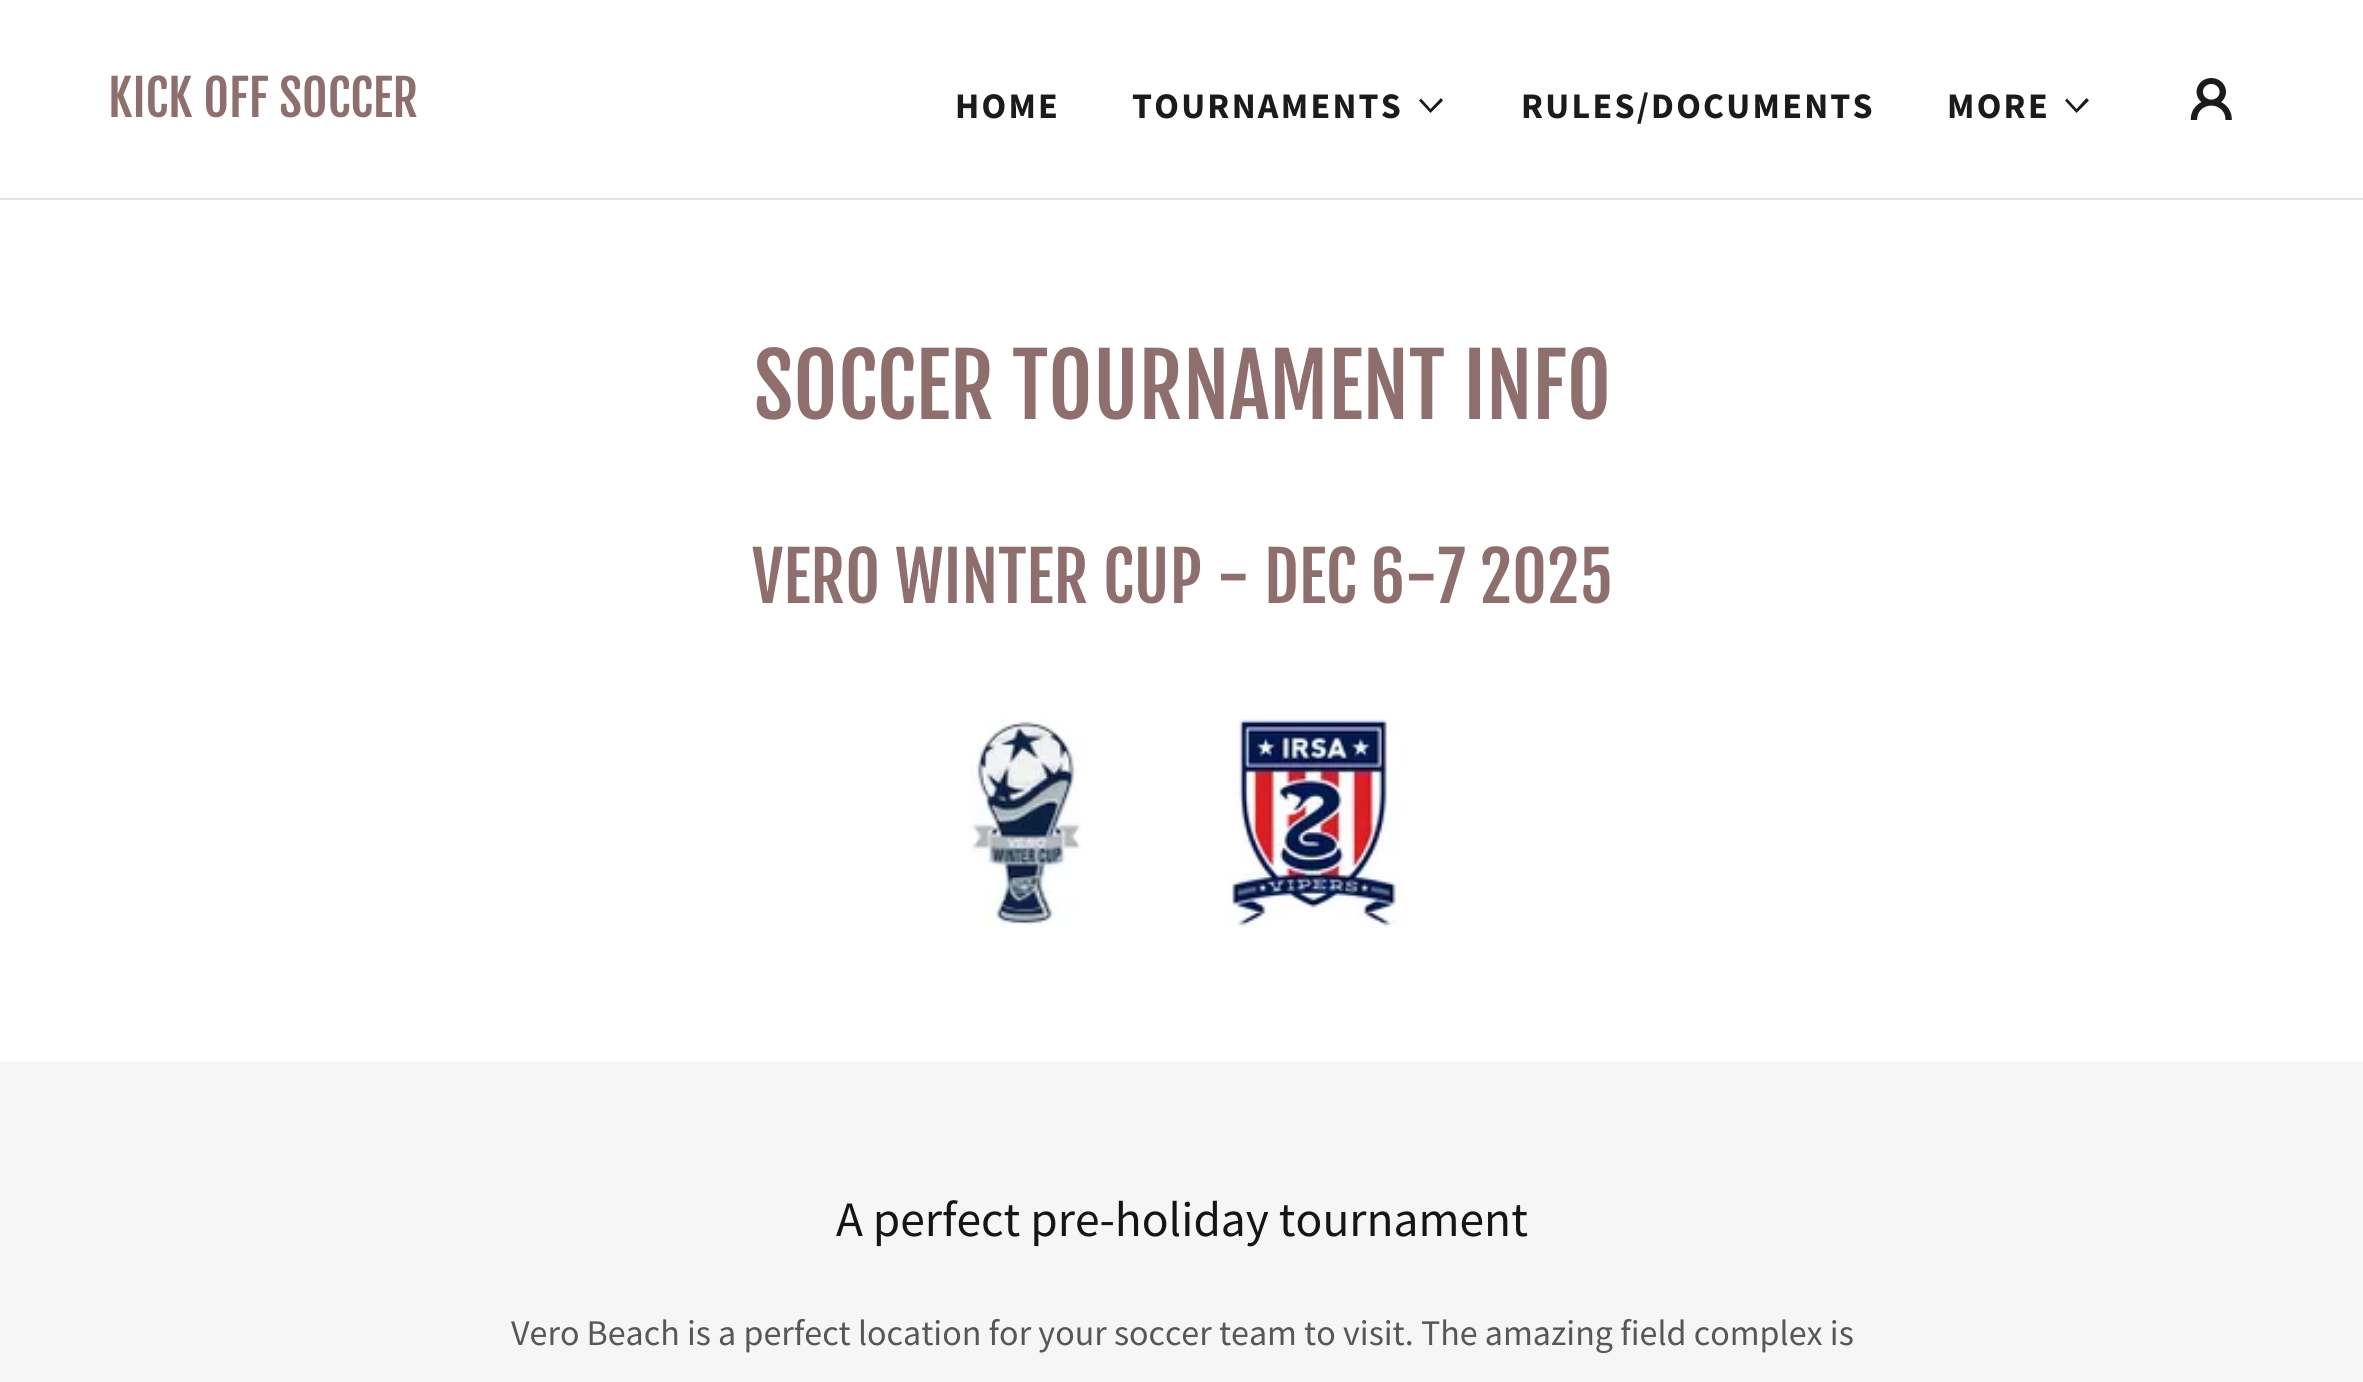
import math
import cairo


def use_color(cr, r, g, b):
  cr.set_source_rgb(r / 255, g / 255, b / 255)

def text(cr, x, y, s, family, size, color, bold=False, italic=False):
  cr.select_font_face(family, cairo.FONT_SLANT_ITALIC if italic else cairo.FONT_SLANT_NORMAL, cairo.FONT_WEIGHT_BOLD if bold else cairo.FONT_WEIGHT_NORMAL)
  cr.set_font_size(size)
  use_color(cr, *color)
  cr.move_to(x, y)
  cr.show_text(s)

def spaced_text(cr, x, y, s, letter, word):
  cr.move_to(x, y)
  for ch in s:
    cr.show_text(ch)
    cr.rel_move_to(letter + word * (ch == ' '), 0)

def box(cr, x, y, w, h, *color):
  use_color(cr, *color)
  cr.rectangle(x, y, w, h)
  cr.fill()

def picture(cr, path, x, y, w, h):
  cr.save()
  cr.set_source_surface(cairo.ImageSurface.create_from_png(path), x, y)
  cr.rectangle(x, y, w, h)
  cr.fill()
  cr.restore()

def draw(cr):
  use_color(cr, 255, 255, 255)
  cr.paint()
  use_color(cr, 27, 27, 27)
  cr.set_fill_rule(cairo.FILL_RULE_EVEN_ODD)
  cr.new_path()
  cr.move_to(1441, 98)
  cr.line_to(1430.5, 109)
  cr.line_to(1421, 98.5)
  cr.line_to(1419, 100.5)
  cr.line_to(1430.5, 113)
  cr.line_to(1443, 100.5)
  cr.close_path()
  cr.fill()
  cr.new_path()
  cr.move_to(2086.5, 98)
  cr.line_to(2076.5, 109)
  cr.line_to(2067, 98.5)
  cr.line_to(2065, 100.5)
  cr.line_to(2076.5, 113)
  cr.line_to(2089, 100.5)
  cr.close_path()
  cr.fill()
  picture(cr, "img_01.png", 2190, 78, 42, 42)
  box(cr, 0, 198, 2363, 2, 226, 226, 226)
  picture(cr, "img_02.png", 969, 719, 113, 208)
  picture(cr, "img_03.png", 1229, 719, 173, 209)
  box(cr, 0, 1062, 2363, 320, 246, 246, 246)
  text(cr, 108, 117, "KICK OFF SOCCER", "Fjalla One", 49.5, (143, 110, 110))
  cr.select_font_face("Source Sans Pro", cairo.FONT_SLANT_NORMAL, cairo.FONT_WEIGHT_BOLD)
  cr.set_font_size(36)
  use_color(cr, 27, 27, 27)
  spaced_text(cr, 955, 118, "HOME", 2.25, 0)
  spaced_text(cr, 1132, 118, "TOURNAMENTS", 2.25, 0)
  spaced_text(cr, 1521, 118, "RULES/DOCUMENTS", 2.25, 0)
  spaced_text(cr, 1947, 118, "MORE", 2.25, 0)
  text(cr, 754, 419, "SOCCER TOURNAMENT INFO", "Fjalla One", 85.5, (143, 110, 110))
  text(cr, 752, 603, "VERO WINTER CUP - DEC 6-7 2025", "Fjalla One", 67.5, (143, 110, 110))
  text(cr, 836, 1236, "A perfect pre-holiday tournament", "Source Sans Pro", 49.5, (21, 21, 21))
  text(cr, 511, 1345, "Vero Beach is a perfect location for your soccer team to visit. The amazing field complex is", "Source Sans Pro", 36, (87, 87, 87))


surface = cairo.ImageSurface(cairo.FORMAT_RGB24, 2363, 1382)
cr = cairo.Context(surface)
options = cairo.FontOptions()
options.set_hint_metrics(cairo.HINT_METRICS_OFF)
options.set_hint_style(cairo.HINT_STYLE_NONE)
cr.set_font_options(options)
cr.set_miter_limit(4)
draw(cr)
surface.write_to_png("out.png")
